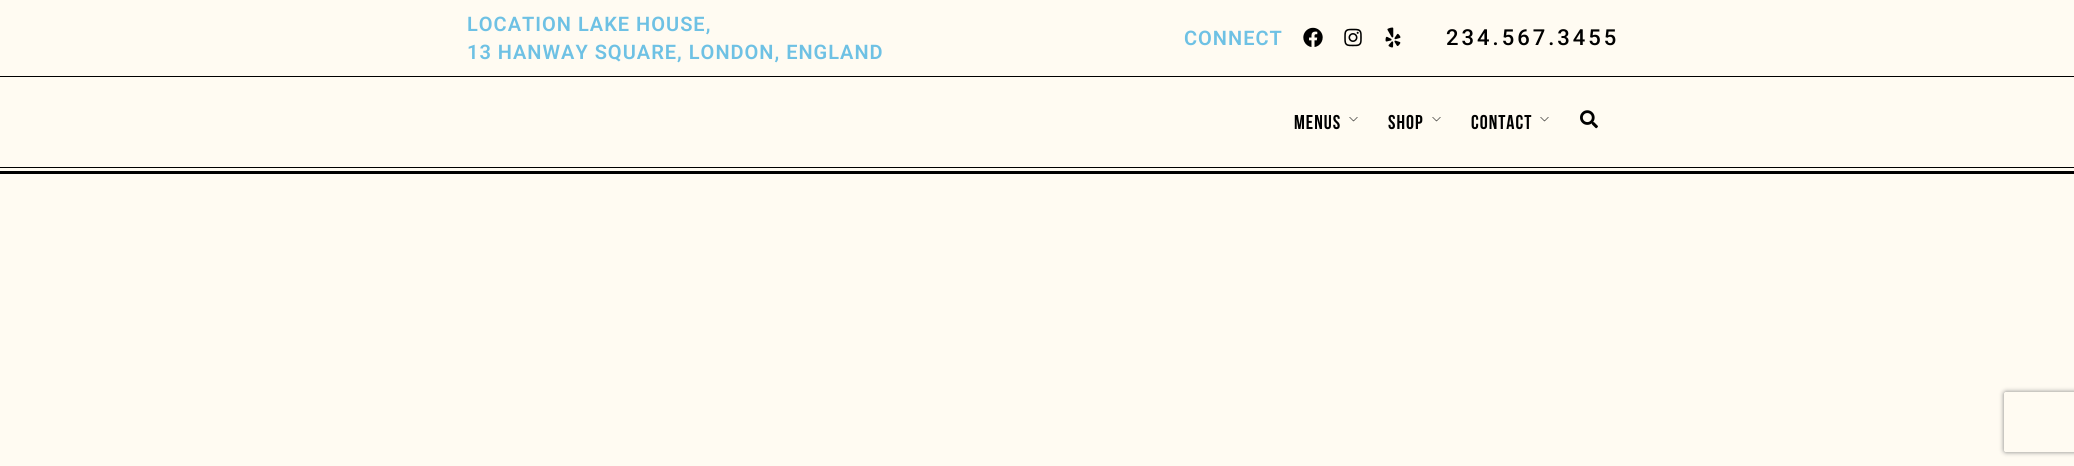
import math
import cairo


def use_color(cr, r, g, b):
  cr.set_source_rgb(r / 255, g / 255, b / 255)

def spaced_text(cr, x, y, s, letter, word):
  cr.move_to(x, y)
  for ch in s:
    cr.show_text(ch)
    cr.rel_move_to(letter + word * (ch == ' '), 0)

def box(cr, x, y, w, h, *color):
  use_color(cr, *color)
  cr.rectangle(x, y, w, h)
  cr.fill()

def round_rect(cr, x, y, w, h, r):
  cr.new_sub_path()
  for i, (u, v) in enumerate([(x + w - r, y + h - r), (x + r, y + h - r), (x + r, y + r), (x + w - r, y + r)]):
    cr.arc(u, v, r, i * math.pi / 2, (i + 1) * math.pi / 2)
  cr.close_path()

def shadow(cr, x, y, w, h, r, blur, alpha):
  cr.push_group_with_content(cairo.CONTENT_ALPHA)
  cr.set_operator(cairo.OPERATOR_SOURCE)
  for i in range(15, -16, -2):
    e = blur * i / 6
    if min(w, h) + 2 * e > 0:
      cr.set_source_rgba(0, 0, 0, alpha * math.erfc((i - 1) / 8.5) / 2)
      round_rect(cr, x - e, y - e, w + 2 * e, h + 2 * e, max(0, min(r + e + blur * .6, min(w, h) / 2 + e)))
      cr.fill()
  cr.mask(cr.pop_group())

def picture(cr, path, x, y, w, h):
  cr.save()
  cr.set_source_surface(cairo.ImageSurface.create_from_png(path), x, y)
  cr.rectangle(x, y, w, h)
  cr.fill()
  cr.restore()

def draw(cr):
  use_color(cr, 255, 251, 242)
  cr.paint()
  box(cr, 0, 76, 2074, 1, 0, 0, 0)
  picture(cr, "img_01.png", 1303, 27, 20, 20)
  picture(cr, "img_02.png", 1344, 28, 18, 19)
  picture(cr, "img_03.png", 1385, 27, 16, 21)
  box(cr, 0, 167, 2074, 1, 0, 0, 0)
  picture(cr, "img_04.png", 1349, 117, 9, 5)
  picture(cr, "img_04.png", 1432, 117, 9, 5)
  picture(cr, "img_04.png", 1540, 117, 9, 5)
  picture(cr, "img_05.png", 1580, 110, 18, 19)
  box(cr, 0, 171, 2074, 3, 0, 0, 0)
  cr.save()
  cr.set_fill_rule(cairo.FILL_RULE_EVEN_ODD)
  cr.new_path()
  cr.move_to(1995, 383)
  cr.line_to(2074, 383)
  cr.line_to(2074, 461)
  cr.line_to(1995, 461)
  cr.close_path()
  cr.move_to(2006, 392)
  cr.line_to(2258, 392)
  cr.curve_to(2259, 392, 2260, 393, 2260, 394)
  cr.line_to(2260, 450)
  cr.curve_to(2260, 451, 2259, 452, 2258, 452)
  cr.line_to(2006, 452)
  cr.curve_to(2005, 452, 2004, 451, 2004, 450)
  cr.line_to(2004, 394)
  cr.curve_to(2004, 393, 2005, 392, 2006, 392)
  cr.close_path()
  cr.clip()
  use_color(cr, 128, 128, 128)
  shadow(cr, 2004, 392, 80, 60, 2, 2.5, 1)
  cr.restore()
  cr.select_font_face("Roboto SemiBold")
  cr.set_font_size(20)
  use_color(cr, 110, 193, 228)
  spaced_text(cr, 467, 31, "LOCATION LAKE HOUSE,", 1, 0)
  spaced_text(cr, 467, 59, "13 HANWAY SQUARE, LONDON, ENGLAND", 1, 0)
  spaced_text(cr, 1184, 45, "CONNECT", 1, 0)
  cr.select_font_face("Roboto Medium")
  cr.set_font_size(22)
  use_color(cr, 0, 0, 0)
  spaced_text(cr, 1446, 45, "234.567.3455", 3, 0)
  cr.select_font_face("Bebas Neue", cairo.FONT_SLANT_NORMAL, cairo.FONT_WEIGHT_BOLD)
  cr.set_font_size(20)
  spaced_text(cr, 1294, 129, "MENUS", 1, 0)
  spaced_text(cr, 1388, 129, "SHOP", 1, 0)
  spaced_text(cr, 1471, 129, "CONTACT", 1, 0)


surface = cairo.ImageSurface(cairo.FORMAT_RGB24, 2074, 466)
cr = cairo.Context(surface)
options = cairo.FontOptions()
options.set_hint_metrics(cairo.HINT_METRICS_OFF)
options.set_hint_style(cairo.HINT_STYLE_NONE)
cr.set_font_options(options)
cr.set_miter_limit(4)
draw(cr)
surface.write_to_png("out.png")
